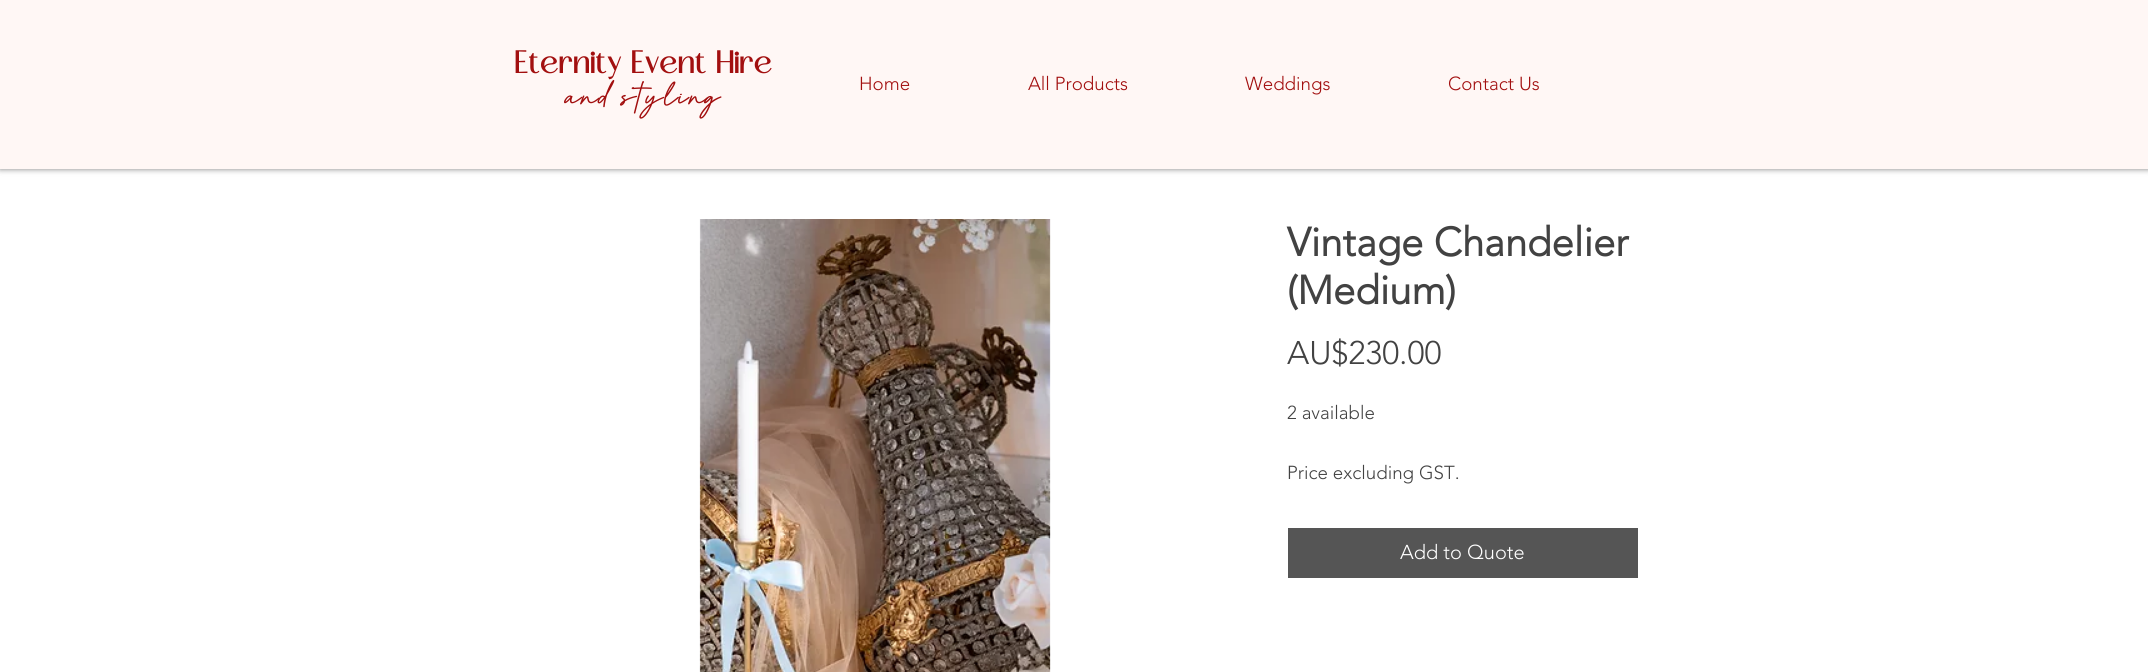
import math
import cairo


def use_color(cr, r, g, b):
  cr.set_source_rgb(r / 255, g / 255, b / 255)

def text(cr, x, y, s, family, size, color, bold=False, italic=False):
  cr.select_font_face(family, cairo.FONT_SLANT_ITALIC if italic else cairo.FONT_SLANT_NORMAL, cairo.FONT_WEIGHT_BOLD if bold else cairo.FONT_WEIGHT_NORMAL)
  cr.set_font_size(size)
  use_color(cr, *color)
  cr.move_to(x, y)
  cr.show_text(s)

def spaced_text(cr, x, y, s, letter, word):
  cr.move_to(x, y)
  for ch in s:
    cr.show_text(ch)
    cr.rel_move_to(letter + word * (ch == ' '), 0)

def box(cr, x, y, w, h, *color):
  use_color(cr, *color)
  cr.rectangle(x, y, w, h)
  cr.fill()

def round_rect(cr, x, y, w, h, r):
  cr.new_sub_path()
  for i, (u, v) in enumerate([(x + w - r, y + h - r), (x + r, y + h - r), (x + r, y + r), (x + w - r, y + r)]):
    cr.arc(u, v, r, i * math.pi / 2, (i + 1) * math.pi / 2)
  cr.close_path()

def shadow(cr, x, y, w, h, r, blur, alpha):
  cr.push_group_with_content(cairo.CONTENT_ALPHA)
  cr.set_operator(cairo.OPERATOR_SOURCE)
  for i in range(15, -16, -2):
    e = blur * i / 6
    if min(w, h) + 2 * e > 0:
      cr.set_source_rgba(0, 0, 0, alpha * math.erfc((i - 1) / 8.5) / 2)
      round_rect(cr, x - e, y - e, w + 2 * e, h + 2 * e, max(0, min(r + e + blur * .6, min(w, h) / 2 + e)))
      cr.fill()
  cr.mask(cr.pop_group())

def picture(cr, path, x, y, w, h):
  cr.save()
  cr.set_source_surface(cairo.ImageSurface.create_from_png(path), x, y)
  cr.rectangle(x, y, w, h)
  cr.fill()
  cr.restore()

def draw(cr):
  use_color(cr, 255, 255, 255)
  cr.paint()
  cr.save()
  cr.set_fill_rule(cairo.FILL_RULE_EVEN_ODD)
  cr.new_path()
  cr.move_to(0, 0)
  cr.line_to(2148, 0)
  cr.line_to(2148, 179)
  cr.line_to(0, 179)
  cr.close_path()
  cr.move_to(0, 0)
  cr.line_to(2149, 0)
  cr.line_to(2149, 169)
  cr.line_to(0, 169)
  cr.close_path()
  cr.clip()
  use_color(cr, 0, 0, 0)
  shadow(cr, 0, 0, 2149, 169, 0, 3, 0.5)
  cr.restore()
  cr.set_source_rgba(1, 0.945, 0.929, 0.5)
  cr.rectangle(0, 0, 2148, 169)
  cr.fill()
  picture(cr, "img_01.png", 699, 219, 352, 453)
  box(cr, 1288, 528, 350, 50, 85, 85, 85)
  cr.select_font_face("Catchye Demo", cairo.FONT_SLANT_NORMAL, cairo.FONT_WEIGHT_BOLD)
  cr.set_font_size(31.25)
  use_color(cr, 162, 15, 15)
  spaced_text(cr, 515, 73, "Eternity Event Hire", 1.6, 0)
  cr.select_font_face("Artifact")
  spaced_text(cr, 566, 103, "and styling", 1.6, 0)
  text(cr, 859, 90, "Home", "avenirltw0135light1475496 Light", 18.75, (162, 15, 15))
  text(cr, 1028, 90, "All Products", "avenirltw0135light1475496 Light", 18.75, (162, 15, 15))
  text(cr, 1245, 90, "Weddings", "avenirltw0135light1475496 Light", 18.75, (162, 15, 15))
  text(cr, 1448, 90, "Contact Us", "avenirltw0135light1475496 Light", 18.75, (162, 15, 15))
  text(cr, 1287, 256, "Vintage Chandelier", "avenirltw0135light1475496", 40, (66, 66, 66), bold=True)
  text(cr, 1287, 304, "(Medium)", "avenirltw0135light1475496", 40, (66, 66, 66), bold=True)
  text(cr, 1287, 364, "AU$230.00", "avenirltw0135light1475496 Light", 32.5, (66, 66, 66))
  text(cr, 1287, 419, "2 available", "avenirltw0135light1475496 Light", 18.75, (66, 66, 66))
  text(cr, 1287, 479, "Price excluding GST.", "avenirltw0135light1475496 Light", 18.75, (66, 66, 66))
  text(cr, 1400, 559, "Add to Quote", "avenirltw0135light1475496 Light", 20, (255, 255, 255))


surface = cairo.ImageSurface(cairo.FORMAT_RGB24, 2148, 672)
cr = cairo.Context(surface)
options = cairo.FontOptions()
options.set_hint_metrics(cairo.HINT_METRICS_OFF)
options.set_hint_style(cairo.HINT_STYLE_NONE)
cr.set_font_options(options)
cr.set_miter_limit(4)
draw(cr)
surface.write_to_png("out.png")
